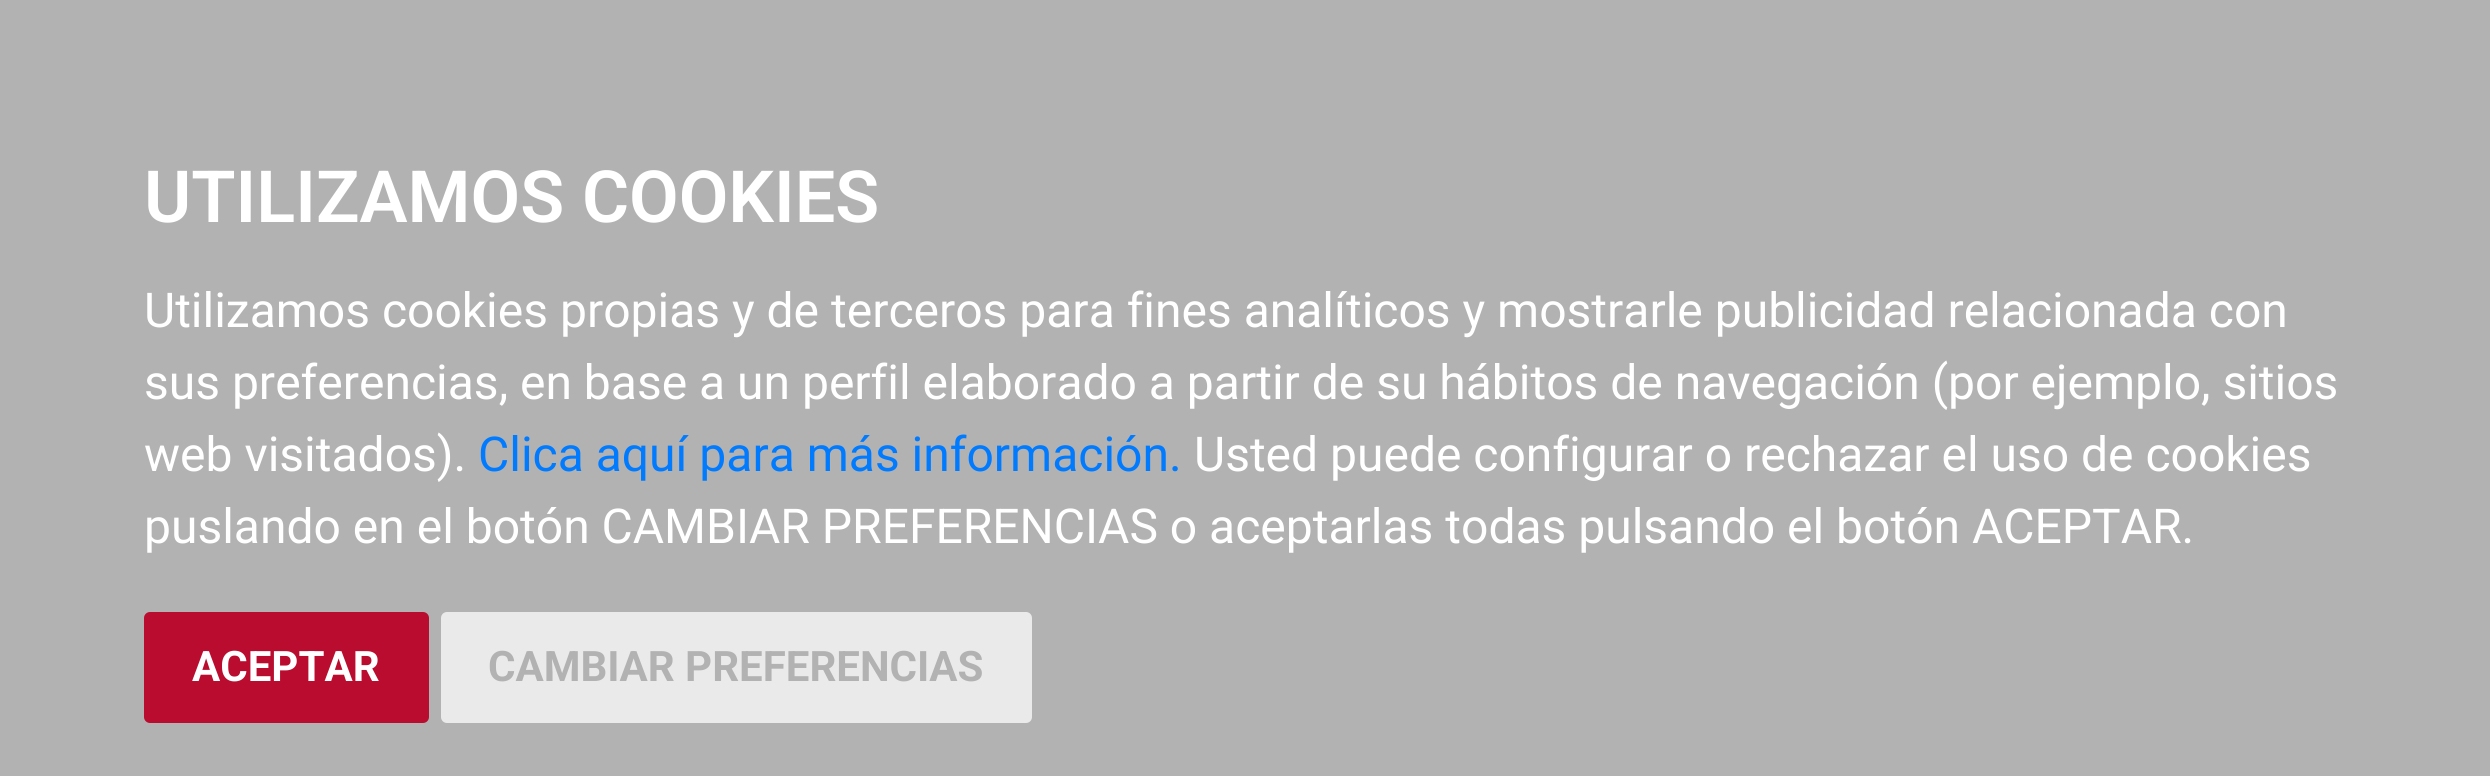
import math
import cairo


def use_color(cr, r, g, b):
  cr.set_source_rgb(r / 255, g / 255, b / 255)

def text(cr, x, y, s, family, size, color, bold=False, italic=False):
  cr.select_font_face(family, cairo.FONT_SLANT_ITALIC if italic else cairo.FONT_SLANT_NORMAL, cairo.FONT_WEIGHT_BOLD if bold else cairo.FONT_WEIGHT_NORMAL)
  cr.set_font_size(size)
  use_color(cr, *color)
  cr.move_to(x, y)
  cr.show_text(s)

def round_rect(cr, x, y, w, h, r):
  cr.new_sub_path()
  for i, (u, v) in enumerate([(x + w - r, y + h - r), (x + r, y + h - r), (x + r, y + r), (x + w - r, y + r)]):
    cr.arc(u, v, r, i * math.pi / 2, (i + 1) * math.pi / 2)
  cr.close_path()

def draw(cr):
  use_color(cr, 178, 178, 178)
  cr.paint()
  use_color(cr, 186, 12, 47)
  round_rect(cr, 144, 612, 285, 111, 6)
  cr.fill()
  use_color(cr, 234, 234, 234)
  round_rect(cr, 441, 612, 591, 111, 6)
  cr.fill()
  text(cr, 144, 222, "UTILIZAMOS COOKIES", "Roboto SemiBold", 72, (255, 255, 255))
  text(cr, 144, 327, "Utilizamos cookies propias y de terceros para fines analíticos y mostrarle publicidad relacionada con", "Roboto", 48, (255, 255, 255))
  text(cr, 144, 399, "sus preferencias, en base a un perfil elaborado a partir de su hábitos de navegación (por ejemplo, sitios", "Roboto", 48, (255, 255, 255))
  text(cr, 144, 471, "web visitados).", "Roboto", 48, (255, 255, 255))
  text(cr, 478, 471, "Clica aquí para más información.", "Roboto", 48, (0, 123, 255))
  text(cr, 1194, 471, "Usted puede configurar o rechazar el uso de cookies", "Roboto", 48, (255, 255, 255))
  text(cr, 144, 543, "puslando en el botón CAMBIAR PREFERENCIAS o aceptarlas todas pulsando el botón ACEPTAR.", "Roboto", 48, (255, 255, 255))
  text(cr, 192, 681, "ACEPTAR", "Roboto", 42, (255, 255, 255), bold=True)
  text(cr, 488, 681, "CAMBIAR PREFERENCIAS", "Roboto", 42, (178, 178, 178), bold=True)


surface = cairo.ImageSurface(cairo.FORMAT_RGB24, 2490, 776)
cr = cairo.Context(surface)
options = cairo.FontOptions()
options.set_hint_metrics(cairo.HINT_METRICS_OFF)
options.set_hint_style(cairo.HINT_STYLE_NONE)
cr.set_font_options(options)
cr.set_miter_limit(4)
draw(cr)
surface.write_to_png("out.png")
